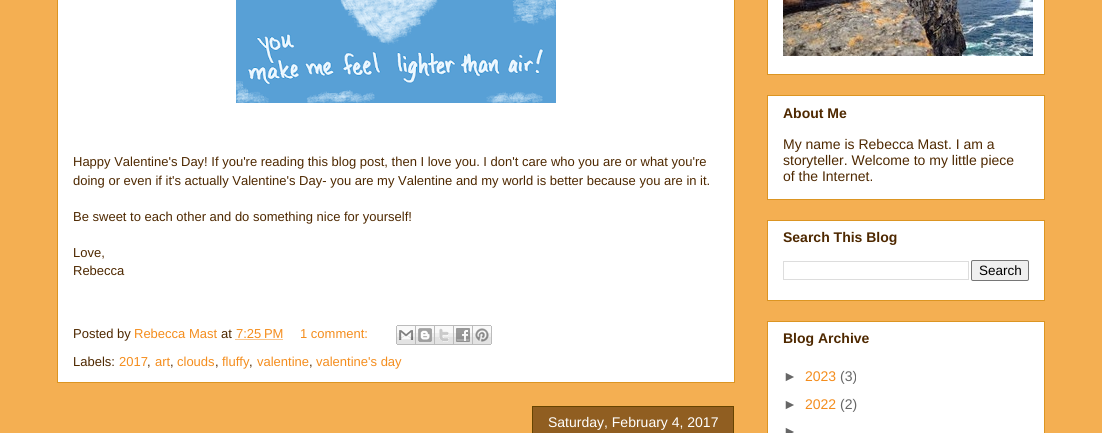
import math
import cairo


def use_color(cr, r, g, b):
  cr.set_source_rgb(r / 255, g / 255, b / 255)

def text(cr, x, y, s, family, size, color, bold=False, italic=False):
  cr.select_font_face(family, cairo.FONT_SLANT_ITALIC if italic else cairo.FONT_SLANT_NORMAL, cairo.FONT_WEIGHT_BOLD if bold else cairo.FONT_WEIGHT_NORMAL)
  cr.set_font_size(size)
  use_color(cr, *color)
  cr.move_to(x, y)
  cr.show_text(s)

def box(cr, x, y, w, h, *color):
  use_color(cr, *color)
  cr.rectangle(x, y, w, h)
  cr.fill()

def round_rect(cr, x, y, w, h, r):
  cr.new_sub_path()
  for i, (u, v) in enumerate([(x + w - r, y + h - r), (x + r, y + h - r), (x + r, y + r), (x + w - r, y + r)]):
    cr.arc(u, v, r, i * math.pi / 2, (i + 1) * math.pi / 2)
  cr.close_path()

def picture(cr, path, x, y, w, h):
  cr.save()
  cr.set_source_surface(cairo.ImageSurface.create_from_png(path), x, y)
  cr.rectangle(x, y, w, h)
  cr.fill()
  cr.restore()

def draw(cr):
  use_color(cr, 244, 175, 82)
  cr.paint()
  use_color(cr, 255, 255, 255)
  cr.rectangle(57.5, -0.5, 677, 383)
  cr.fill_preserve()
  use_color(cr, 220, 149, 34)
  cr.set_line_width(1)
  cr.stroke()
  picture(cr, "img_01.png", 236, 0, 320, 103)
  cr.new_path()
  cr.move_to(235.5, 339.5)
  cr.line_to(283, 339.5)
  use_color(cr, 244, 141, 29)
  cr.set_dash([1, 1])
  cr.stroke()
  picture(cr, "img_02.png", 396, 325, 20, 20)
  picture(cr, "img_03.png", 416, 325, 19, 20)
  picture(cr, "img_04.png", 435, 325, 19, 20)
  picture(cr, "img_05.png", 454, 325, 19, 20)
  picture(cr, "img_06.png", 473, 325, 19, 20)
  box(cr, 533, 407, 200, 26, 144, 94, 33)
  box(cr, 532, 406, 202, 1, 102, 68, 0)
  box(cr, 733, 407, 1, 26, 102, 68, 0)
  box(cr, 532, 407, 1, 26, 102, 68, 0)
  use_color(cr, 255, 255, 255)
  cr.rectangle(767.5, -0.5, 277, 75)
  cr.fill_preserve()
  use_color(cr, 220, 149, 34)
  cr.set_dash([])
  cr.stroke()
  picture(cr, "img_07.png", 783, 0, 250, 56)
  use_color(cr, 255, 255, 255)
  cr.rectangle(767.5, 95.5, 277, 104)
  cr.fill_preserve()
  use_color(cr, 220, 149, 34)
  cr.stroke()
  use_color(cr, 255, 255, 255)
  cr.rectangle(767.5, 220.5, 277, 80)
  cr.fill_preserve()
  use_color(cr, 220, 149, 34)
  cr.stroke()
  cr.rectangle(783.5, 261.5, 185, 18)
  use_color(cr, 221, 221, 221)
  cr.stroke()
  use_color(cr, 239, 239, 239)
  round_rect(cr, 971.5, 260.5, 57, 20, 1.5)
  cr.fill_preserve()
  use_color(cr, 118, 118, 118)
  cr.stroke()
  use_color(cr, 255, 255, 255)
  cr.rectangle(767.5, 321.5, 277, 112)
  cr.fill_preserve()
  use_color(cr, 220, 149, 34)
  cr.stroke()
  text(cr, 73, 166, "Happy Valentine's Day! If you're reading this blog post, then I love you. I don't care who you are or what you're", "Liberation Sans", 13, (78, 40, 0))
  text(cr, 73, 185, "doing or even if it's actually Valentine's Day- you are my Valentine and my world is better because you are in it.", "Liberation Sans", 13, (78, 40, 0))
  text(cr, 73, 221, "Be sweet to each other and do something nice for yourself!", "Liberation Sans", 13, (78, 40, 0))
  text(cr, 73, 257, "Love,", "Liberation Sans", 13, (78, 40, 0))
  text(cr, 73, 275, "Rebecca", "Liberation Sans", 13, (78, 40, 0))
  text(cr, 73, 338, "Posted by", "Liberation Sans", 13, (78, 40, 0))
  text(cr, 134, 338, "Rebecca Mast", "Liberation Sans", 13, (244, 141, 29))
  text(cr, 221, 338, "at", "Liberation Sans", 13, (78, 40, 0))
  text(cr, 236, 338, "7:25 PM", "Liberation Sans", 13, (244, 141, 29))
  text(cr, 300, 338, "1 comment:", "Liberation Sans", 13, (244, 141, 29))
  text(cr, 73, 366, "Labels:", "Liberation Sans", 13, (78, 40, 0))
  text(cr, 119, 366, "2017", "Liberation Sans", 13, (244, 141, 29))
  text(cr, 147, 366, ",", "Liberation Sans", 13, (78, 40, 0))
  text(cr, 155, 366, "art", "Liberation Sans", 13, (244, 141, 29))
  text(cr, 170, 366, ",", "Liberation Sans", 13, (78, 40, 0))
  text(cr, 177, 366, "clouds", "Liberation Sans", 13, (244, 141, 29))
  text(cr, 215, 366, ",", "Liberation Sans", 13, (78, 40, 0))
  text(cr, 222, 366, "fluffy", "Liberation Sans", 13, (244, 141, 29))
  text(cr, 249, 366, ",", "Liberation Sans", 13, (78, 40, 0))
  text(cr, 257, 366, "valentine", "Liberation Sans", 13, (244, 141, 29))
  text(cr, 309, 366, ",", "Liberation Sans", 13, (78, 40, 0))
  text(cr, 316, 366, "valentine's day", "Liberation Sans", 13, (244, 141, 29))
  text(cr, 548, 427, "Saturday, February 4, 2017", "Liberation Sans", 14, (255, 255, 255))
  text(cr, 783, 118, "About Me", "Liberation Sans", 14, (78, 40, 0), bold=True)
  text(cr, 783, 149, "My name is Rebecca Mast. I am a", "Liberation Sans", 14, (78, 40, 0))
  text(cr, 783, 165, "storyteller. Welcome to my little piece", "Liberation Sans", 14, (78, 40, 0))
  text(cr, 783, 181, "of the Internet.", "Liberation Sans", 14, (78, 40, 0))
  text(cr, 783, 242, "Search This Blog", "Liberation Sans", 14, (78, 40, 0), bold=True)
  text(cr, 979, 275, "Search", "Liberation Sans", 13.5, (0, 0, 0))
  text(cr, 783, 343, "Blog Archive", "Liberation Sans", 14, (78, 40, 0), bold=True)
  text(cr, 783, 381, "►", "Liberation Sans", 14, (102, 102, 102))
  text(cr, 805, 381, "2023", "Liberation Sans", 14, (244, 141, 29))
  text(cr, 840, 381, "(3)", "Liberation Sans", 14, (102, 102, 102))
  text(cr, 783, 409, "►", "Liberation Sans", 14, (102, 102, 102))
  text(cr, 805, 409, "2022", "Liberation Sans", 14, (244, 141, 29))
  text(cr, 840, 409, "(2)", "Liberation Sans", 14, (102, 102, 102))
  text(cr, 783, 436, "►", "Liberation Sans", 14, (102, 102, 102))


surface = cairo.ImageSurface(cairo.FORMAT_RGB24, 1102, 433)
cr = cairo.Context(surface)
options = cairo.FontOptions()
options.set_hint_metrics(cairo.HINT_METRICS_OFF)
options.set_hint_style(cairo.HINT_STYLE_NONE)
cr.set_font_options(options)
cr.set_miter_limit(4)
draw(cr)
surface.write_to_png("out.png")
